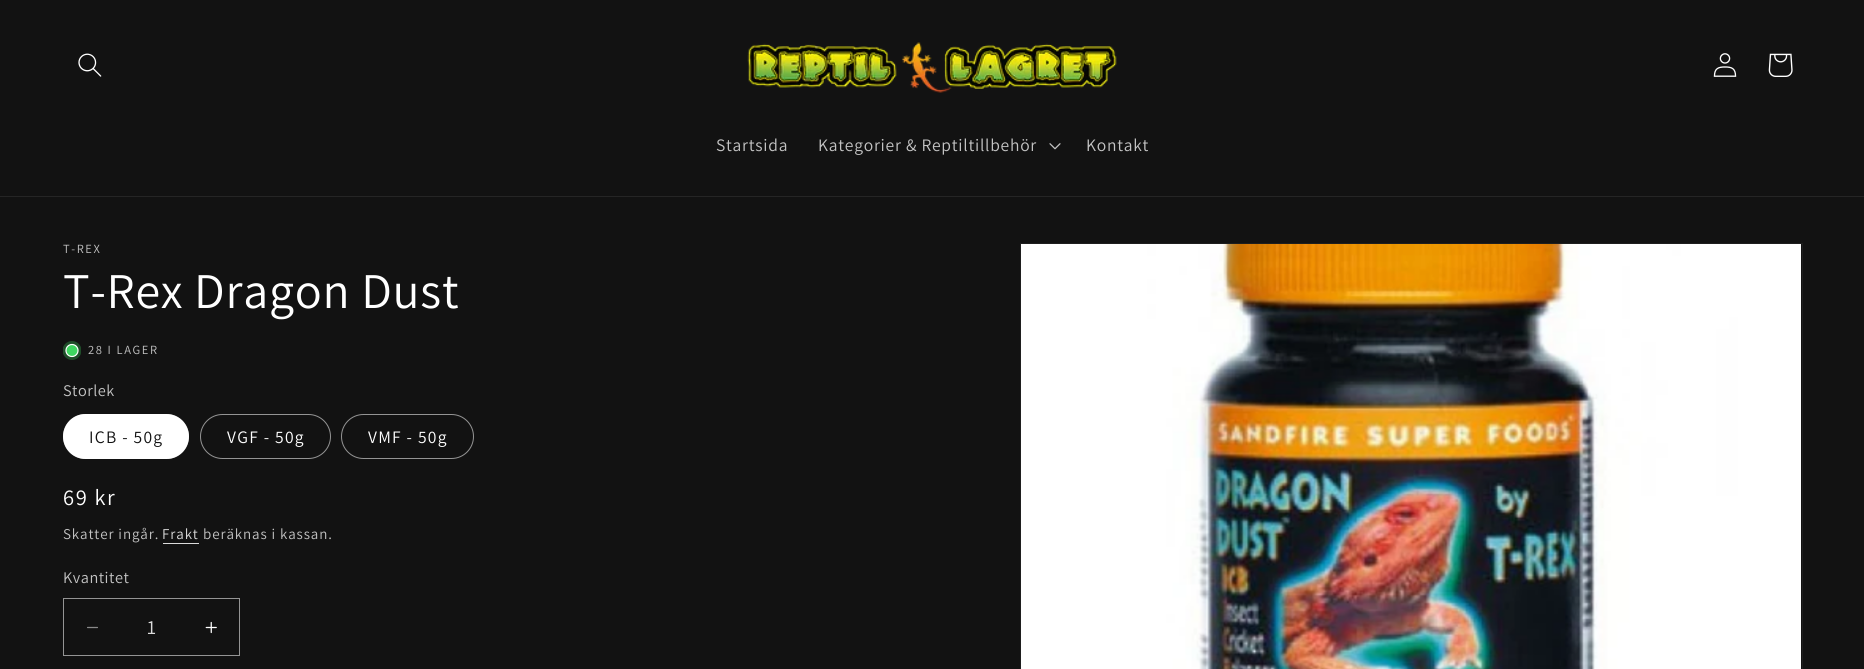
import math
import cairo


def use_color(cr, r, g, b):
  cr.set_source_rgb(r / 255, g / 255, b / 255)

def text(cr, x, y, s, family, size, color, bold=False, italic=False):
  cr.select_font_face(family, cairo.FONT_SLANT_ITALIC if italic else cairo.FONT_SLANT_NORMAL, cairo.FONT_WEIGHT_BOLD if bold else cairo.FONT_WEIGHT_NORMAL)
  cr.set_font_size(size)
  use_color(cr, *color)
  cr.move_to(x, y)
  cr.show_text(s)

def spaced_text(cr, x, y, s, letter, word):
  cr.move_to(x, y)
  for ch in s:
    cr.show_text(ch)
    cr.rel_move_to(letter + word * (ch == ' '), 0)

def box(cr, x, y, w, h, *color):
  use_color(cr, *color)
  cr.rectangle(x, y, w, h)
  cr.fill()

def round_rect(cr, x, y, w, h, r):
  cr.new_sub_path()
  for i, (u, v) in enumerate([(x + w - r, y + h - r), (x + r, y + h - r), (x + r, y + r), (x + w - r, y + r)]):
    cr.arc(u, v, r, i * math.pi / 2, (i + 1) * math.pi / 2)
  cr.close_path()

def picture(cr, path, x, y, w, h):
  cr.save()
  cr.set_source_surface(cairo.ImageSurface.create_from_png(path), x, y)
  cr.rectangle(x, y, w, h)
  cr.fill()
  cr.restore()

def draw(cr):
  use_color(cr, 18, 18, 18)
  cr.paint()
  box(cr, 0, 196, 1864, 1, 37, 37, 37)
  picture(cr, "img_01.png", 78, 53, 24, 24)
  picture(cr, "img_02.png", 747, 42, 370, 51)
  picture(cr, "img_03.png", 1713, 53, 24, 24)
  picture(cr, "img_04.png", 1768, 53, 25, 24)
  picture(cr, "img_05.png", 1049, 143, 12, 7)
  cr.save()
  cr.rectangle(63, 341, 18, 19)
  cr.clip()
  use_color(cr, 31, 77, 41)
  cr.arc(72, 350.5, 9.5, 0, 2 * math.pi)
  cr.fill()
  cr.restore()
  use_color(cr, 62, 214, 96)
  cr.arc(72, 350.5, 6, 0, 2 * math.pi)
  cr.fill_preserve()
  use_color(cr, 255, 255, 255)
  cr.set_line_width(1.2)
  cr.stroke()
  round_rect(cr, 63, 414, 126, 45, 22.5)
  cr.fill()
  round_rect(cr, 63.5, 414.5, 125, 44, 22)
  cr.set_source_rgba(1, 1, 1, 0.55)
  cr.set_line_width(1)
  cr.stroke()
  round_rect(cr, 200.5, 414.5, 130, 44, 22)
  use_color(cr, 148, 148, 148)
  cr.stroke()
  round_rect(cr, 341.5, 414.5, 132, 44, 22)
  cr.stroke()
  box(cr, 163, 543, 36, 1, 219, 219, 219)
  picture(cr, "img_06.png", 87, 626, 11, 3)
  picture(cr, "img_07.png", 205, 621, 12, 13)
  cr.rectangle(63.5, 598.5, 176, 57)
  use_color(cr, 148, 148, 148)
  cr.stroke()
  cr.rectangle(1020.5, 243.5, 782, 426)
  use_color(cr, 30, 30, 30)
  cr.stroke()
  picture(cr, "img_08.png", 1021, 244, 780, 425)
  cr.select_font_face("Assistant")
  cr.set_font_size(17.5)
  use_color(cr, 196, 196, 196)
  spaced_text(cr, 716, 151, "Startsida", 0.75, 0)
  spaced_text(cr, 818, 151, "Kategorier & Reptiltillbehör", 0.75, 0)
  spaced_text(cr, 1086, 151, "Kontakt", 0.75, 0)
  cr.set_font_size(12.5)
  spaced_text(cr, 63, 253, "T-REX", 1.6, 0)
  cr.set_font_size(50)
  use_color(cr, 255, 255, 255)
  spaced_text(cr, 63, 308, "T-Rex Dragon Dust", 0.75, 0)
  cr.set_font_size(12.5)
  use_color(cr, 196, 196, 196)
  spaced_text(cr, 88, 354, "28 I LAGER", 1.6, 0)
  cr.set_font_size(16.25)
  spaced_text(cr, 63, 396, "Storlek", 0.5, 0)
  cr.set_font_size(17.5)
  use_color(cr, 18, 18, 18)
  spaced_text(cr, 89, 443, "ICB - 50g", 1.25, 0)
  use_color(cr, 255, 255, 255)
  spaced_text(cr, 227, 443, "VGF - 50g", 1.25, 0)
  spaced_text(cr, 368, 443, "VMF - 50g", 1.25, 0)
  cr.set_font_size(22.5)
  spaced_text(cr, 63, 505, "69 kr", 1.6, 0)
  cr.set_font_size(15)
  use_color(cr, 196, 196, 196)
  spaced_text(cr, 63, 539, "Skatter ingår.", 0.9, 0)
  use_color(cr, 219, 219, 219)
  spaced_text(cr, 162, 539, "Frakt", 0.9, 0)
  use_color(cr, 196, 196, 196)
  spaced_text(cr, 203, 539, "beräknas i kassan.", 0.9, 0)
  cr.set_font_size(16.25)
  spaced_text(cr, 63, 583, "Kvantitet", 0.5, 0)
  text(cr, 147, 634, "1", "Assistant", 20, (219, 219, 219))


surface = cairo.ImageSurface(cairo.FORMAT_RGB24, 1864, 669)
cr = cairo.Context(surface)
options = cairo.FontOptions()
options.set_hint_metrics(cairo.HINT_METRICS_OFF)
options.set_hint_style(cairo.HINT_STYLE_NONE)
cr.set_font_options(options)
cr.set_miter_limit(4)
draw(cr)
surface.write_to_png("out.png")
